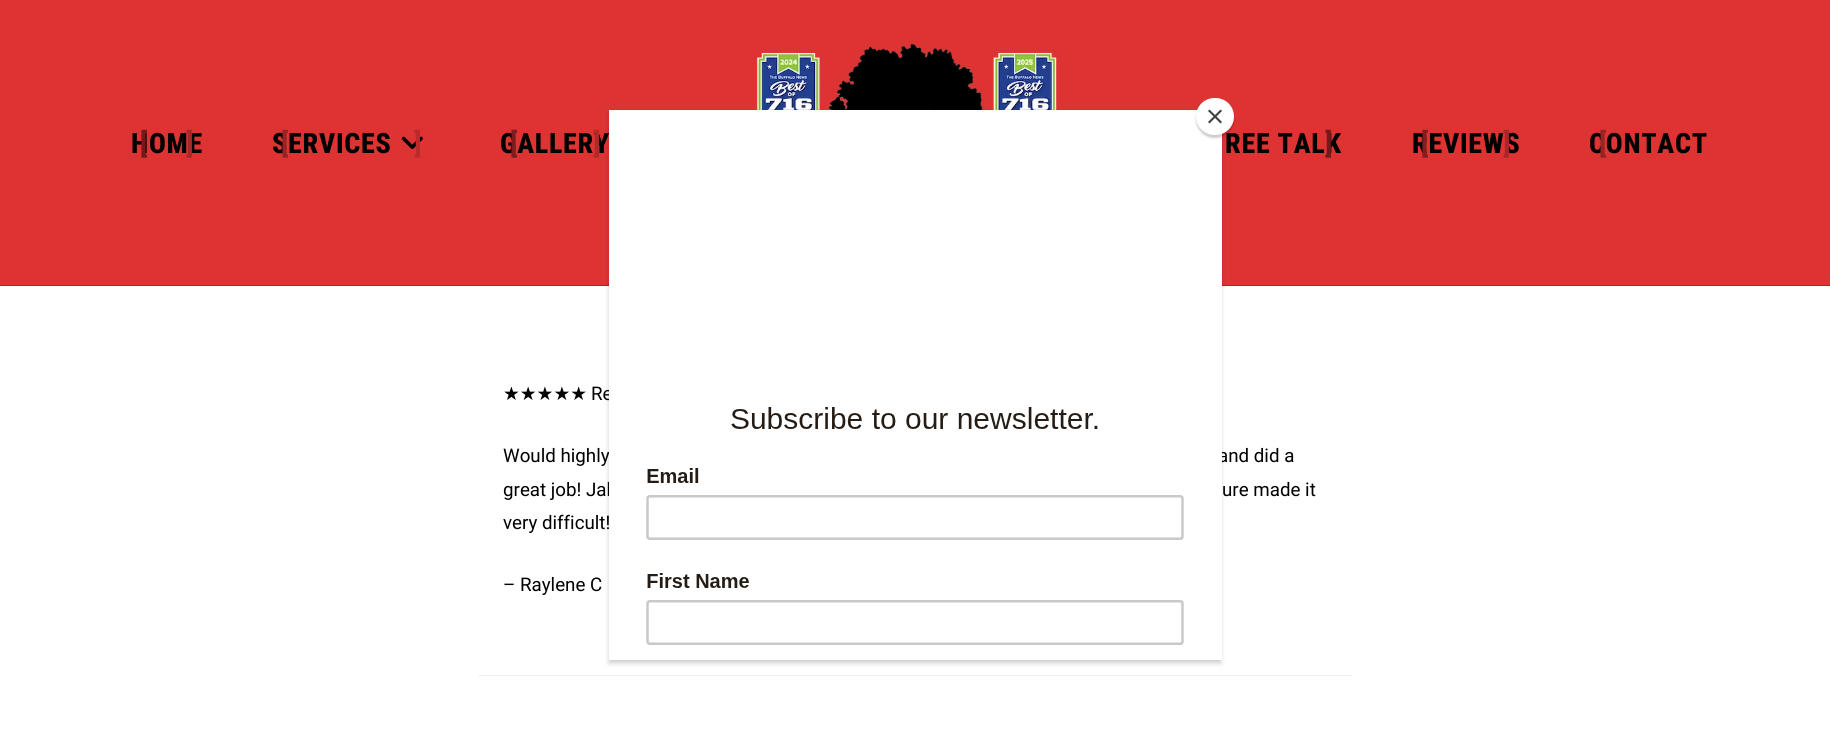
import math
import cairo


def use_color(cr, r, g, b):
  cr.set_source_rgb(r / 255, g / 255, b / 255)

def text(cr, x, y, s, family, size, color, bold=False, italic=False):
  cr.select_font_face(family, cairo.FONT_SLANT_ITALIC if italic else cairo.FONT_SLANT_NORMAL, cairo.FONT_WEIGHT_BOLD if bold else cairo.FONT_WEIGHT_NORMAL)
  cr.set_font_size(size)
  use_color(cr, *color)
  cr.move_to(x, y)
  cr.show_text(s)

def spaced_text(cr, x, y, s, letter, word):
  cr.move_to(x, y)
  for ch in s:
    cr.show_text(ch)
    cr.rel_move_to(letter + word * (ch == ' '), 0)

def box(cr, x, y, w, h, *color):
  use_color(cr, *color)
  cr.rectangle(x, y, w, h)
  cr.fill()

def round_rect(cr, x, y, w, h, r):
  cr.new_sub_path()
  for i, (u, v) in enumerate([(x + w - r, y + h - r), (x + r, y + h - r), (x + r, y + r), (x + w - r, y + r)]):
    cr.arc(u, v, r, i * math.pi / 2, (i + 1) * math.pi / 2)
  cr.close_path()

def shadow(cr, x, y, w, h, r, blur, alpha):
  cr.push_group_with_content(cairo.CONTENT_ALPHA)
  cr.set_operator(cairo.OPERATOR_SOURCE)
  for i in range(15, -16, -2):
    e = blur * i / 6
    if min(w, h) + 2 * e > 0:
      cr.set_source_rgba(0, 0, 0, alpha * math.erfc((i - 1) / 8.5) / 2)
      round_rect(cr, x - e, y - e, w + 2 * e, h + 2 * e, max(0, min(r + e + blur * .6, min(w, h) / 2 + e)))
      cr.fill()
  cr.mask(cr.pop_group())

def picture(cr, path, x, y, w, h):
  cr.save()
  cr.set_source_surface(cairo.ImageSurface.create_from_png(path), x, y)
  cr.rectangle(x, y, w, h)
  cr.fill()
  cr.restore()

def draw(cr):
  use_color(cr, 255, 255, 255)
  cr.paint()
  box(cr, 0, 0, 1830, 285, 221, 51, 51)
  box(cr, 0, 285, 1830, 1, 163, 37, 37)
  picture(cr, "img_02.png", 756, 43, 301, 67)
  use_color(cr, 0, 0, 0)
  shadow(cr, 609, 113, 612, 550, 0, 2.5, 0.2)
  picture(cr, "img_03.png", 401, 136, 22, 13)
  box(cr, 478, 675, 875, 1, 241, 241, 241)
  cr.select_font_face("Roboto Condensed ExtraBold")
  cr.set_font_size(28)
  use_color(cr, 0, 0, 0)
  spaced_text(cr, 131, 153, "HOME", 0.75, 0)
  use_color(cr, 170, 39, 39)
  spaced_text(cr, 186, 153, "]", 0.75, 0)
  use_color(cr, 114, 26, 26)
  spaced_text(cr, 140, 153, "[", 0.75, 0)
  use_color(cr, 185, 43, 43)
  spaced_text(cr, 414, 153, "]", 0.75, 0)
  use_color(cr, 0, 0, 0)
  spaced_text(cr, 272, 153, "SERVICES", 0.75, 0)
  use_color(cr, 151, 35, 35)
  spaced_text(cr, 281, 153, "[", 0.75, 0)
  use_color(cr, 0, 0, 0)
  spaced_text(cr, 500, 153, "GALLERY", 0.75, 0)
  use_color(cr, 179, 41, 41)
  spaced_text(cr, 593, 153, "]", 0.75, 0)
  use_color(cr, 124, 29, 29)
  spaced_text(cr, 510, 153, "[", 0.75, 0)
  use_color(cr, 0, 0, 0)
  spaced_text(cr, 1225, 153, "REE TALK", 0.75, 0)
  use_color(cr, 114, 26, 26)
  spaced_text(cr, 1325, 153, "]", 0.75, 0)
  use_color(cr, 0, 0, 0)
  spaced_text(cr, 1412, 153, "REVIEWS", 0.75, 0)
  use_color(cr, 170, 39, 39)
  spaced_text(cr, 1503, 153, "]", 0.75, 0)
  use_color(cr, 130, 30, 30)
  spaced_text(cr, 1421, 153, "[", 0.75, 0)
  use_color(cr, 0, 0, 0)
  spaced_text(cr, 1589, 153, "CONTACT", 0.75, 0)
  use_color(cr, 151, 35, 35)
  spaced_text(cr, 1599, 153, "[", 0.75, 0)
  text(cr, 503, 400, "★★★★★", "DejaVu Sans", 18.75, (0, 0, 0))
  text(cr, 591, 400, "Re", "Roboto", 18.75, (0, 0, 0))
  text(cr, 503, 462, "Would highly", "Roboto", 18.75, (0, 0, 0))
  text(cr, 1218, 462, "and did a", "Roboto", 18.75, (0, 0, 0))
  text(cr, 503, 496, "great job! Jak", "Roboto", 18.75, (0, 0, 0))
  picture(cr, "img_01.png", 609, 110, 613, 550)
  use_color(cr, 0, 0, 0)
  shadow(cr, 1196, 100, 38, 38, 19, 1, 0.2)
  use_color(cr, 255, 255, 255)
  round_rect(cr, 1196, 98, 38, 37, 18.5)
  cr.fill()
  use_color(cr, 65, 65, 65)
  cr.new_path()
  cr.move_to(1220.5, 109.5)
  cr.line_to(1222, 111)
  cr.line_to(1209.5, 123.5)
  cr.line_to(1208, 122)
  cr.close_path()
  cr.fill()
  cr.new_path()
  cr.move_to(1208, 111)
  cr.line_to(1209.5, 109.5)
  cr.line_to(1222, 122)
  cr.line_to(1220.5, 123.5)
  cr.close_path()
  cr.fill()
  text(cr, 1222, 496, "ure made it", "Roboto", 18.75, (0, 0, 0))
  text(cr, 503, 529, "very difficult!", "Roboto", 18.75, (0, 0, 0))
  text(cr, 503, 591, "– Raylene C", "Roboto", 18.75, (0, 0, 0))


surface = cairo.ImageSurface(cairo.FORMAT_RGB24, 1830, 735)
cr = cairo.Context(surface)
options = cairo.FontOptions()
options.set_hint_metrics(cairo.HINT_METRICS_OFF)
options.set_hint_style(cairo.HINT_STYLE_NONE)
cr.set_font_options(options)
cr.set_miter_limit(4)
draw(cr)
surface.write_to_png("out.png")
